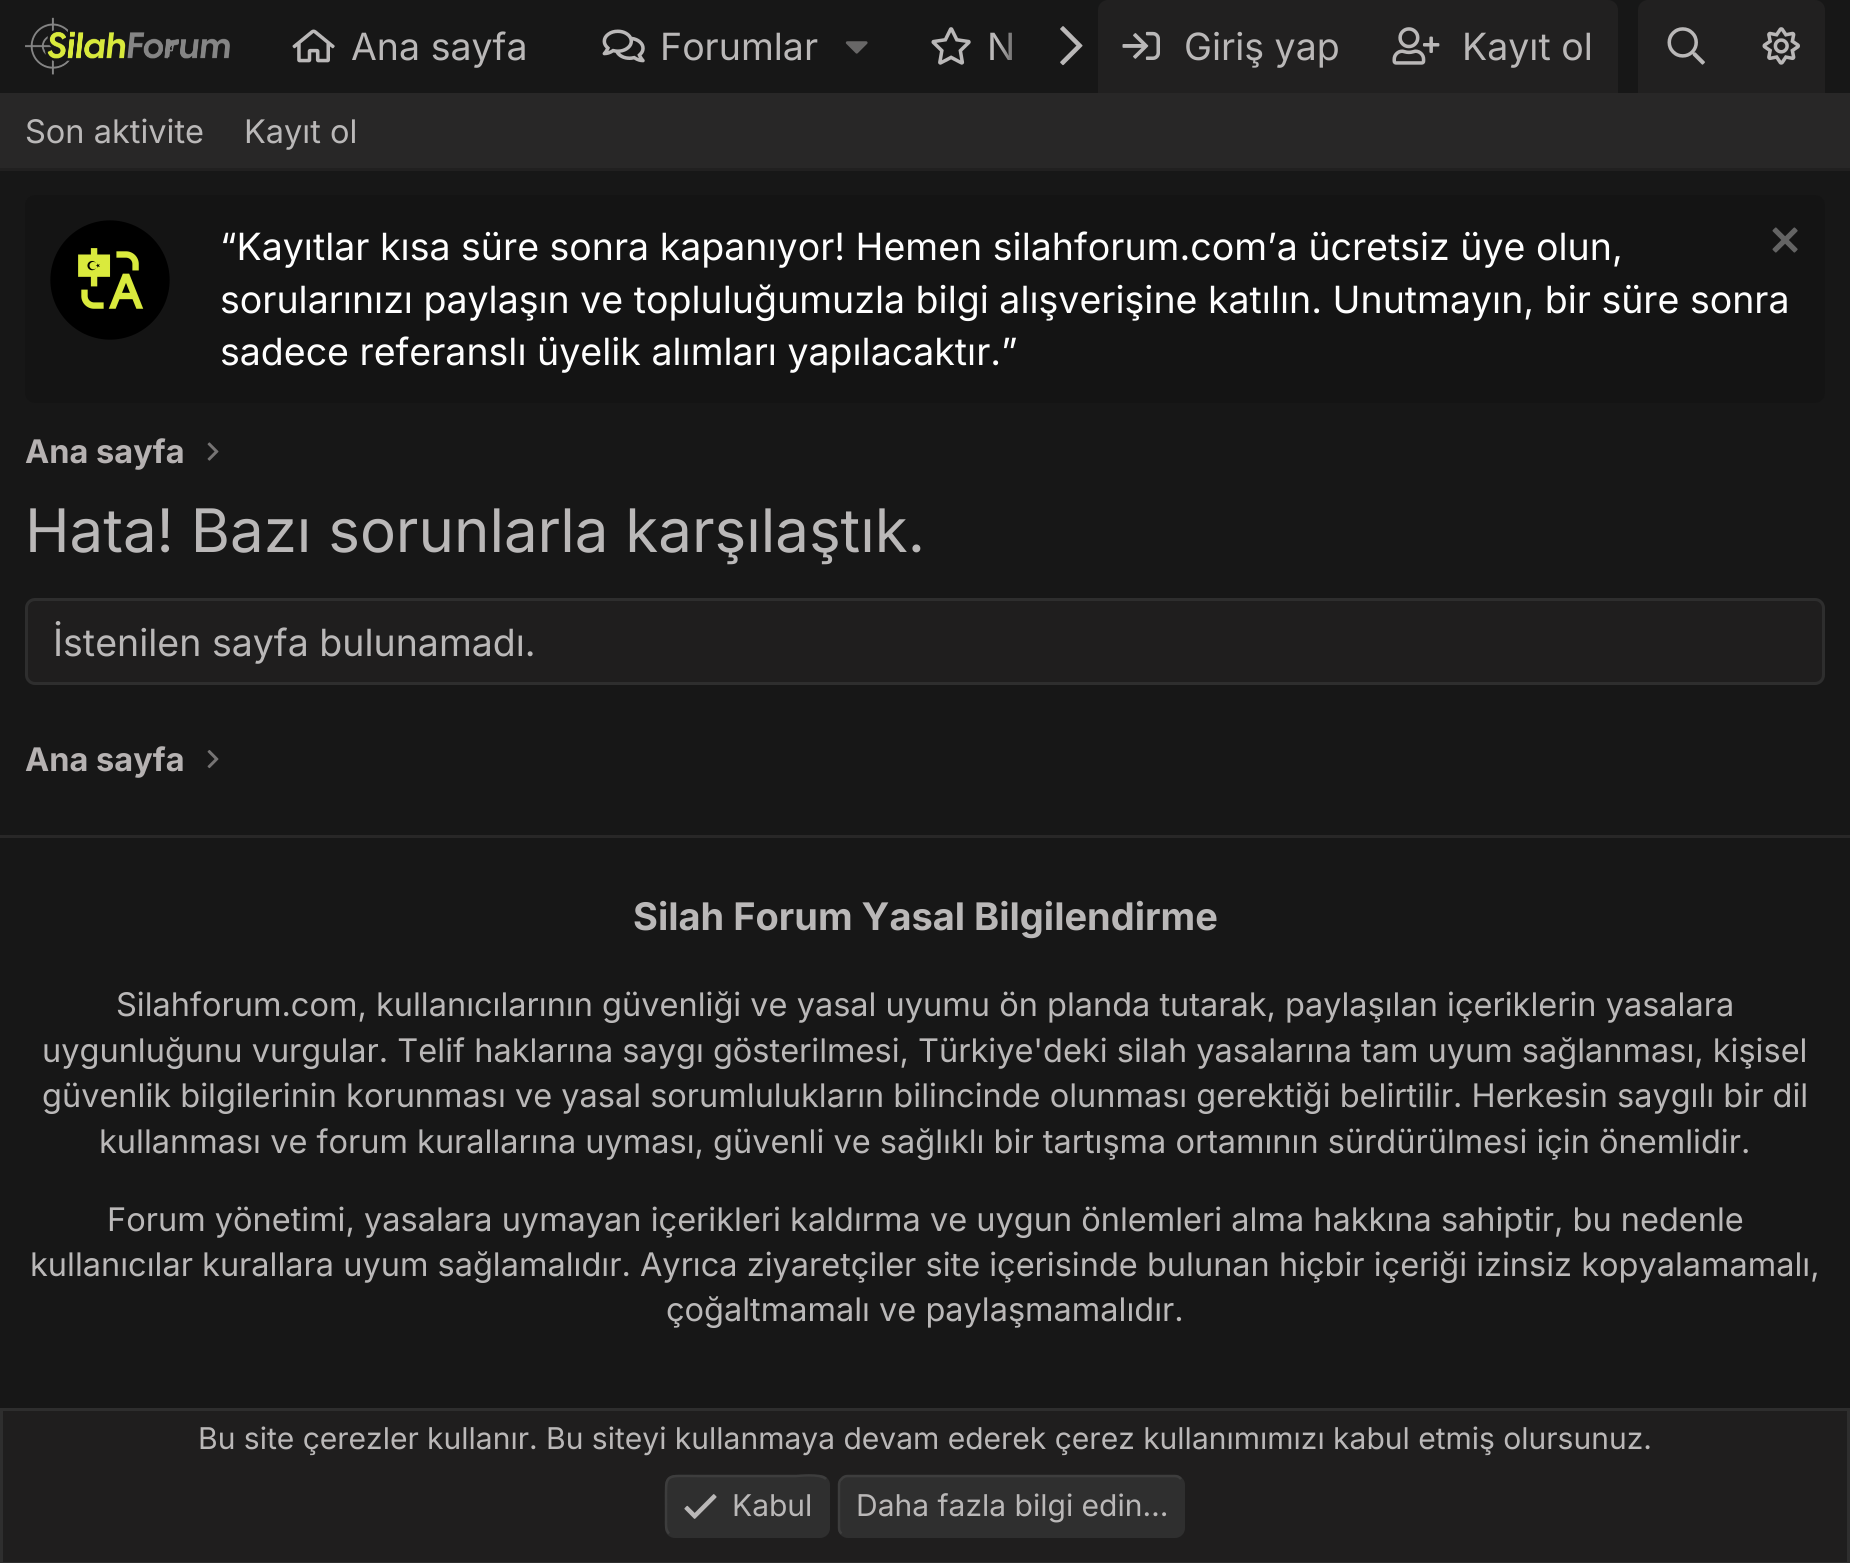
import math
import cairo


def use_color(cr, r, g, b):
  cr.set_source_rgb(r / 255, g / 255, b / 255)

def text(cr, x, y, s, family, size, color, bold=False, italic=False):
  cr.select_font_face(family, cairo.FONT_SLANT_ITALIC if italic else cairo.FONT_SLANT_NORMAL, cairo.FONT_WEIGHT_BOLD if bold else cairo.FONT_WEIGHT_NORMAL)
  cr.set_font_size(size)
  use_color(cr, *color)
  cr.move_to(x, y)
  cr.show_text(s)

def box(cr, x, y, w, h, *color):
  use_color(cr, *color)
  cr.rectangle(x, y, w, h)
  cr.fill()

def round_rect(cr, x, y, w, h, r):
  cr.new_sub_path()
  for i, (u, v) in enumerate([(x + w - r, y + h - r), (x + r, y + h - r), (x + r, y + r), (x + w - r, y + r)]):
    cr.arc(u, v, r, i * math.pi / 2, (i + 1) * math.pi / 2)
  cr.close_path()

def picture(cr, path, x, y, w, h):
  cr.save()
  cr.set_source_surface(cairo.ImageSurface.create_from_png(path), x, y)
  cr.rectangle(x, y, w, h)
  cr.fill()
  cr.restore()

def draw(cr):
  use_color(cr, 23, 23, 23)
  cr.paint()
  picture(cr, "img_01.png", 25, 17, 205, 58)
  picture(cr, "img_02.png", 292, 29, 43, 34)
  picture(cr, "img_03.png", 602, 29, 43, 34)
  picture(cr, "img_04.png", 845, 41, 23, 13)
  picture(cr, "img_05.png", 931, 27, 40, 38)
  picture(cr, "img_06.png", 1060, 26, 23, 40)
  use_color(cr, 33, 32, 32)
  cr.new_path()
  cr.move_to(1108, 0)
  cr.line_to(1608, 0)
  cr.curve_to(1613.5, 0, 1618, 4.5, 1618, 10)
  cr.line_to(1618, 93)
  cr.line_to(1098, 93)
  cr.line_to(1098, 10)
  cr.curve_to(1098, 4.5, 1102.5, 0, 1108, 0)
  cr.close_path()
  cr.fill()
  picture(cr, "img_07.png", 1122, 31, 38, 29)
  picture(cr, "img_08.png", 1392, 27, 48, 38)
  cr.new_path()
  cr.move_to(1648, 0)
  cr.line_to(1815, 0)
  cr.curve_to(1820.5, 0, 1825, 4.5, 1825, 10)
  cr.line_to(1825, 93)
  cr.line_to(1638, 93)
  cr.line_to(1638, 10)
  cr.curve_to(1638, 4.5, 1642.5, 0, 1648, 0)
  cr.close_path()
  cr.fill()
  picture(cr, "img_09.png", 1667, 27, 38, 38)
  picture(cr, "img_10.png", 1762, 27, 38, 38)
  box(cr, 0, 93, 1850, 75, 40, 39, 39)
  box(cr, 0, 168, 1850, 3, 33, 32, 32)
  use_color(cr, 20, 20, 20)
  round_rect(cr, 25, 195, 1800, 208, 10)
  cr.fill()
  picture(cr, "img_11.png", 50, 220, 120, 120)
  picture(cr, "img_12.png", 1772, 227, 26, 26)
  picture(cr, "img_13.png", 207, 442, 12, 19)
  use_color(cr, 31, 30, 30)
  round_rect(cr, 26.5, 599.5, 1797, 84, 8.5)
  cr.fill_preserve()
  use_color(cr, 46, 46, 46)
  cr.set_line_width(3)
  cr.stroke()
  picture(cr, "img_14.png", 207, 750, 12, 19)
  box(cr, 0, 835, 1850, 3, 40, 39, 39)
  use_color(cr, 31, 30, 30)
  cr.rectangle(1.5, 1409.5, 1847, 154)
  cr.fill_preserve()
  use_color(cr, 46, 46, 46)
  cr.stroke()
  use_color(cr, 47, 47, 47)
  round_rect(cr, 665, 1475, 165, 63, 10)
  cr.fill()
  cr.new_path()
  cr.move_to(669, 1533.5)
  cr.curve_to(665.5, 1530, 666, 1525, 666, 1520.5)
  cr.line_to(666, 1506)
  cr.curve_to(666, 1472, 663, 1476, 699, 1476)
  cr.line_to(796, 1476)
  cr.curve_to(798, 1476, 820, 1473, 826, 1479)
  cr.set_source_rgba(0.271, 0.271, 0.271, 0.65)
  cr.set_line_width(2.5)
  cr.stroke()
  picture(cr, "img_15.png", 684, 1494, 33, 25)
  use_color(cr, 47, 47, 47)
  round_rect(cr, 838, 1475, 347, 63, 10)
  cr.fill()
  cr.new_path()
  cr.move_to(841.5, 1533.5)
  cr.curve_to(839.5, 1532, 839, 1530, 839, 1527.5)
  cr.line_to(839, 1485)
  cr.curve_to(839, 1482.5, 839.5, 1480.5, 841.5, 1479)
  cr.curve_to(843, 1477, 845, 1476, 847.5, 1476)
  cr.line_to(1175, 1476)
  cr.curve_to(1177.5, 1476, 1179.5, 1477, 1181, 1479)
  cr.set_source_rgba(0.271, 0.271, 0.271, 0.65)
  cr.stroke()
  text(cr, 351, 60, "Ana sayfa", "Inter", 37.5, (186, 184, 184))
  text(cr, 660, 60, "Forumlar", "Inter", 37.5, (186, 184, 184))
  text(cr, 987, 60, "N", "Inter", 37.5, (186, 184, 184))
  gradient = cairo.LinearGradient(998, 46, 1098, 46)
  gradient.add_color_stop_rgba(0, 0.09, 0.09, 0.09, 0)
  gradient.add_color_stop_rgba(0.33, 0.09, 0.09, 0.09, 1)
  cr.set_source(gradient)
  cr.rectangle(999, 32, 13, 28)
  cr.fill()
  text(cr, 1184, 60, "Giriş yap", "Inter", 37.5, (186, 184, 184))
  text(cr, 1462, 60, "Kayıt ol", "Inter", 37.5, (186, 184, 184))
  text(cr, 25, 143, "Son aktivite", "Inter", 32.5, (186, 184, 184))
  text(cr, 244, 143, "Kayıt ol", "Inter", 32.5, (186, 184, 184))
  text(cr, 220, 260, "“Kayıtlar kısa süre sonra kapanıyor! Hemen silahforum.com’a ücretsiz üye olun,", "Inter", 37.5, (254, 254, 254))
  text(cr, 220, 313, "sorularınızı paylaşın ve topluluğumuzla bilgi alışverişine katılın. Unutmayın, bir süre sonra", "Inter", 37.5, (254, 254, 254))
  text(cr, 220, 365, "sadece referanslı üyelik alımları yapılacaktır.”", "Inter", 37.5, (254, 254, 254))
  text(cr, 25, 463, "Ana sayfa", "Inter", 32.5, (182, 178, 178), bold=True)
  text(cr, 25, 552, "Hata! Bazı sorunlarla karşılaştık.", "Inter", 60, (186, 184, 184))
  text(cr, 53, 656, "İstenilen sayfa bulunamadı.", "Inter", 37.5, (186, 184, 184))
  text(cr, 25, 771, "Ana sayfa", "Inter", 32.5, (182, 178, 178), bold=True)
  text(cr, 633, 930, "Silah Forum Yasal Bilgilendirme", "Inter", 38, (186, 184, 184), bold=True)
  text(cr, 116, 1016, "Silahforum.com, kullanıcılarının güvenliği ve yasal uyumu ön planda tutarak, paylaşılan içeriklerin yasalara", "Inter", 32.5, (186, 184, 184))
  text(cr, 42, 1062, "uygunluğunu vurgular. Telif haklarına saygı gösterilmesi, Türkiye'deki silah yasalarına tam uyum sağlanması, kişisel", "Inter", 32.5, (186, 184, 184))
  text(cr, 42, 1107, "güvenlik bilgilerinin korunması ve yasal sorumlulukların bilincinde olunması gerektiği belirtilir. Herkesin saygılı bir dil", "Inter", 32.5, (186, 184, 184))
  text(cr, 99, 1153, "kullanması ve forum kurallarına uyması, güvenli ve sağlıklı bir tartışma ortamının sürdürülmesi için önemlidir.", "Inter", 32.5, (186, 184, 184))
  text(cr, 107, 1231, "Forum yönetimi, yasalara uymayan içerikleri kaldırma ve uygun önlemleri alma hakkına sahiptir, bu nedenle", "Inter", 32.5, (186, 184, 184))
  text(cr, 30, 1276, "kullanıcılar kurallara uyum sağlamalıdır. Ayrıca ziyaretçiler site içerisinde bulunan hiçbir içeriği izinsiz kopyalamamalı,", "Inter", 32.5, (186, 184, 184))
  text(cr, 666, 1321, "çoğaltmamalı ve paylaşmamalıdır.", "Inter", 32.5, (186, 184, 184))
  text(cr, 198, 1449, "Bu site çerezler kullanır. Bu siteyi kullanmaya devam ederek çerez kullanımımızı kabul etmiş olursunuz.", "Inter", 30, (186, 184, 184))
  text(cr, 732, 1516, "Kabul", "Inter", 30, (186, 184, 184))
  text(cr, 856, 1516, "Daha fazla bilgi edin…", "Inter", 30, (186, 184, 184))


surface = cairo.ImageSurface(cairo.FORMAT_RGB24, 1850, 1563)
cr = cairo.Context(surface)
options = cairo.FontOptions()
options.set_hint_metrics(cairo.HINT_METRICS_OFF)
options.set_hint_style(cairo.HINT_STYLE_NONE)
cr.set_font_options(options)
cr.set_miter_limit(4)
draw(cr)
surface.write_to_png("out.png")
